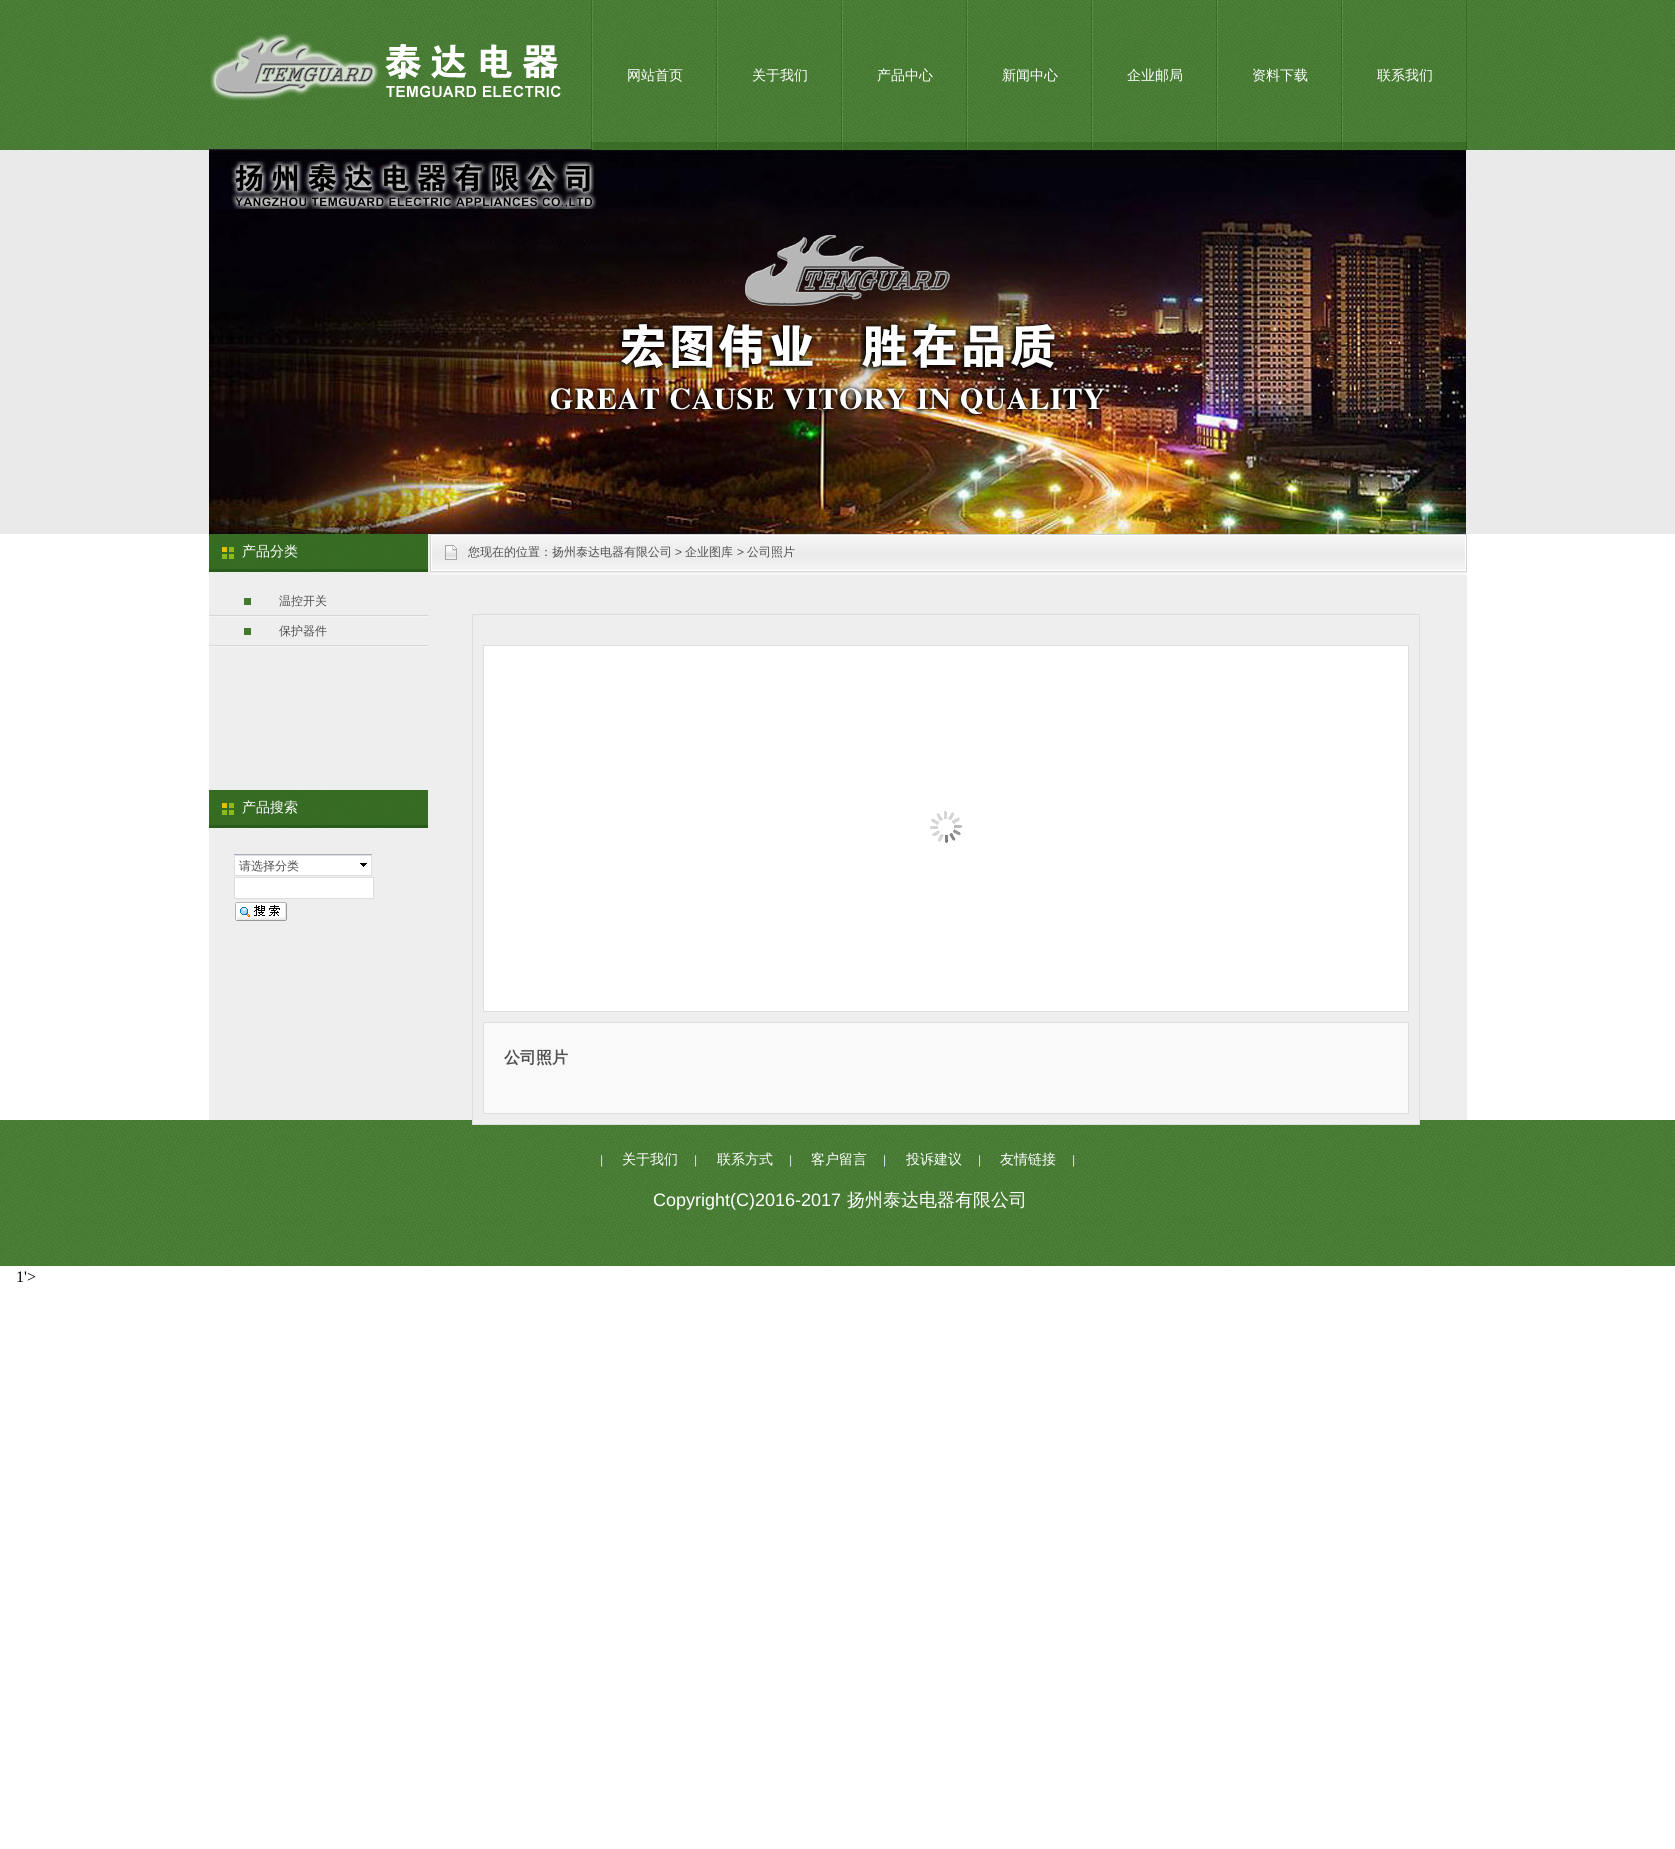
import math
import cairo


def use_color(cr, r, g, b):
  cr.set_source_rgb(r / 255, g / 255, b / 255)

def text(cr, x, y, s, family, size, color, bold=False, italic=False):
  cr.select_font_face(family, cairo.FONT_SLANT_ITALIC if italic else cairo.FONT_SLANT_NORMAL, cairo.FONT_WEIGHT_BOLD if bold else cairo.FONT_WEIGHT_NORMAL)
  cr.set_font_size(size)
  use_color(cr, *color)
  cr.move_to(x, y)
  cr.show_text(s)

def box(cr, x, y, w, h, *color):
  use_color(cr, *color)
  cr.rectangle(x, y, w, h)
  cr.fill()

def picture(cr, path, x, y, w, h):
  cr.save()
  cr.set_source_surface(cairo.ImageSurface.create_from_png(path), x, y)
  cr.rectangle(x, y, w, h)
  cr.fill()
  cr.restore()

def draw(cr):
  use_color(cr, 255, 255, 255)
  cr.paint()
  picture(cr, "img_01.png", 0, 0, 1675, 534)
  picture(cr, "img_02.png", 209, 0, 1258, 534)
  picture(cr, "img_03.png", 210, 33, 351, 68)
  picture(cr, "img_07.png", 209, 149, 1257, 385)
  picture(cr, "img_04.png", 591, 0, 2, 150)
  picture(cr, "img_05.png", 593, 0, 125, 150)
  picture(cr, "img_05.png", 718, 0, 125, 150)
  picture(cr, "img_05.png", 843, 0, 125, 150)
  picture(cr, "img_05.png", 968, 0, 125, 150)
  picture(cr, "img_05.png", 1093, 0, 125, 150)
  picture(cr, "img_05.png", 1218, 0, 125, 150)
  picture(cr, "img_06.png", 1343, 0, 124, 150)
  picture(cr, "img_08.png", 231, 161, 366, 48)
  box(cr, 209, 534, 1258, 586, 238, 238, 238)
  picture(cr, "img_09.png", 209, 534, 219, 38)
  picture(cr, "img_10.png", 380, 537, 48, 21)
  picture(cr, "img_11.png", 209, 598, 219, 19)
  picture(cr, "img_11.png", 209, 628, 219, 19)
  picture(cr, "img_12.png", 430, 534, 1037, 41)
  picture(cr, "img_13.png", 1465, 535, 2, 36)
  picture(cr, "img_09.png", 209, 790, 219, 38)
  picture(cr, "img_10.png", 380, 793, 48, 21)
  box(cr, 234, 855, 138, 21, 219, 223, 230)
  box(cr, 234, 854, 138, 1, 171, 173, 179)
  box(cr, 235, 856, 136, 19, 255, 255, 255)
  picture(cr, "img_14.png", 360, 863, 7, 4)
  cr.rectangle(234.5, 877.5, 139, 21)
  cr.fill_preserve()
  use_color(cr, 221, 221, 221)
  cr.set_line_width(1)
  cr.stroke()
  picture(cr, "img_15.png", 235, 902, 52, 19)
  picture(cr, "img_18.png", 0, 1120, 1675, 146)
  picture(cr, "img_17.png", 209, 1120, 1258, 146)
  box(cr, 473, 1120, 946, 4, 240, 240, 240)
  cr.rectangle(472.5, 614.5, 947, 510)
  use_color(cr, 221, 221, 221)
  cr.stroke()
  use_color(cr, 255, 255, 255)
  cr.rectangle(483.5, 645.5, 925, 366)
  cr.fill_preserve()
  use_color(cr, 221, 221, 221)
  cr.stroke()
  picture(cr, "img_16.png", 930, 811, 32, 32)
  use_color(cr, 249, 249, 249)
  cr.rectangle(483.5, 1022.5, 925, 91)
  cr.fill_preserve()
  use_color(cr, 221, 221, 221)
  cr.stroke()
  text(cr, 627, 80, "网站首页", "WenQuanYi Zen Hei Medium", 14, (255, 255, 255))
  text(cr, 752, 80, "关于我们", "WenQuanYi Zen Hei Medium", 14, (255, 255, 255))
  text(cr, 877, 80, "产品中心", "WenQuanYi Zen Hei Medium", 14, (255, 255, 255))
  text(cr, 1002, 80, "新闻中心", "WenQuanYi Zen Hei Medium", 14, (255, 255, 255))
  text(cr, 1127, 80, "企业邮局", "WenQuanYi Zen Hei Medium", 14, (255, 255, 255))
  text(cr, 1252, 80, "资料下载", "WenQuanYi Zen Hei Medium", 14, (255, 255, 255))
  text(cr, 1377, 80, "联系我们", "WenQuanYi Zen Hei Medium", 14, (255, 255, 255))
  text(cr, 242, 556, "产品分类", "WenQuanYi Zen Hei Medium", 14, (255, 255, 255))
  text(cr, 279, 605, "温控开关", "WenQuanYi Zen Hei Medium", 12, (80, 80, 80))
  text(cr, 279, 635, "保护器件", "WenQuanYi Zen Hei Medium", 12, (80, 80, 80))
  text(cr, 468, 556, "您现在的位置：扬州泰达电器有限公司", "WenQuanYi Zen Hei Medium", 12, (80, 80, 80))
  text(cr, 675, 556, ">", "Liberation Sans", 12, (80, 80, 80))
  text(cr, 685, 556, "企业图库", "WenQuanYi Zen Hei Medium", 12, (80, 80, 80))
  text(cr, 737, 556, ">", "Liberation Sans", 12, (80, 80, 80))
  text(cr, 747, 556, "公司照片", "WenQuanYi Zen Hei Medium", 12, (80, 80, 80))
  text(cr, 242, 812, "产品搜索", "WenQuanYi Zen Hei Medium", 14, (255, 255, 255))
  text(cr, 239, 870, "请选择分类", "WenQuanYi Zen Hei Medium", 12, (80, 80, 80))
  text(cr, 504, 1063, "公司照片", "WenQuanYi Zen Hei", 16, (80, 80, 80), bold=True)
  text(cr, 600, 1164, "|", "Liberation Sans", 12, (224, 224, 239))
  text(cr, 622, 1164, "关于我们", "WenQuanYi Zen Hei Medium", 14, (255, 255, 255))
  text(cr, 694, 1164, "|", "Liberation Sans", 12, (224, 224, 239))
  text(cr, 717, 1164, "联系方式", "WenQuanYi Zen Hei Medium", 14, (255, 255, 255))
  text(cr, 789, 1164, "|", "Liberation Sans", 12, (224, 224, 239))
  text(cr, 811, 1164, "客户留言", "WenQuanYi Zen Hei Medium", 14, (255, 255, 255))
  text(cr, 883, 1164, "|", "Liberation Sans", 12, (224, 224, 239))
  text(cr, 906, 1164, "投诉建议", "WenQuanYi Zen Hei Medium", 14, (255, 255, 255))
  text(cr, 978, 1164, "|", "Liberation Sans", 12, (224, 224, 239))
  text(cr, 1000, 1164, "友情链接", "WenQuanYi Zen Hei Medium", 14, (255, 255, 255))
  text(cr, 1072, 1164, "|", "Liberation Sans", 12, (224, 224, 239))
  text(cr, 653, 1206, "Copyright(C)2016-2017", "Liberation Sans", 18, (255, 255, 255))
  text(cr, 847, 1206, "扬州泰达电器有限公司", "WenQuanYi Zen Hei Medium", 18, (255, 255, 255))
  text(cr, 16, 1282, "1'>", "Liberation Serif", 16, (0, 0, 0))


surface = cairo.ImageSurface(cairo.FORMAT_RGB24, 1675, 1849)
cr = cairo.Context(surface)
options = cairo.FontOptions()
options.set_hint_metrics(cairo.HINT_METRICS_OFF)
options.set_hint_style(cairo.HINT_STYLE_NONE)
cr.set_font_options(options)
cr.set_miter_limit(4)
draw(cr)
surface.write_to_png("out.png")
